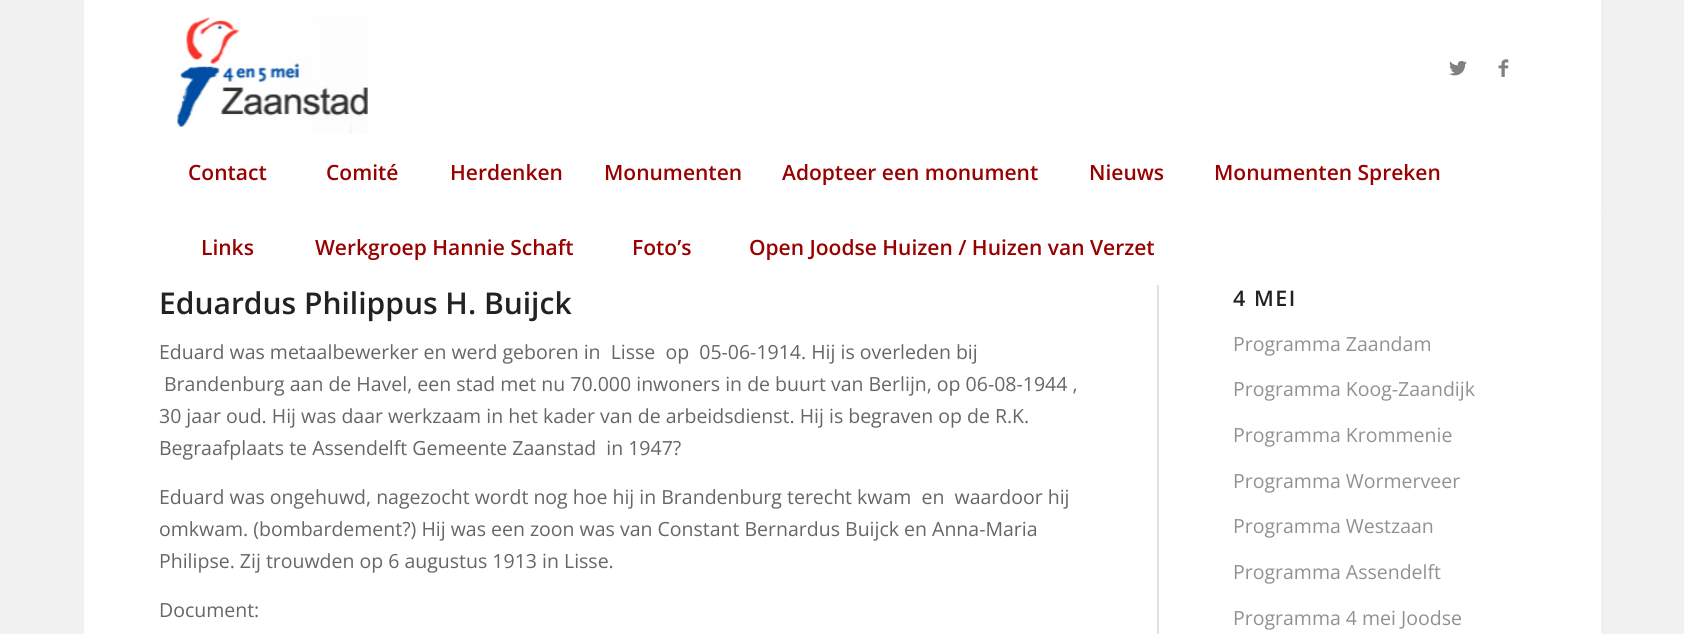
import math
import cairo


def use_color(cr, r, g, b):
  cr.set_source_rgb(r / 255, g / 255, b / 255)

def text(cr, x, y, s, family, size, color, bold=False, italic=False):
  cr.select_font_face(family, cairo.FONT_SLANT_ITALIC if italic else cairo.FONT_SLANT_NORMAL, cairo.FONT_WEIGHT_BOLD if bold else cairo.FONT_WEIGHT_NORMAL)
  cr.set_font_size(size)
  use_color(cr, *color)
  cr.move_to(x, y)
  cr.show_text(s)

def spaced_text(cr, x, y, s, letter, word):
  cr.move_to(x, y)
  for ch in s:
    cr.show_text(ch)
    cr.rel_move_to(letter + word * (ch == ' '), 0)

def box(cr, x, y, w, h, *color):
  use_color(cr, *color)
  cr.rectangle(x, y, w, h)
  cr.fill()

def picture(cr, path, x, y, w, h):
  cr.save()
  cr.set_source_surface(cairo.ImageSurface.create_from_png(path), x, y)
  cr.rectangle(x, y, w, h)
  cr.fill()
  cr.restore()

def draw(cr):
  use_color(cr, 241, 241, 241)
  cr.paint()
  box(cr, 84, 0, 1517, 210, 255, 255, 255)
  picture(cr, "img_01.png", 177, 17, 191, 117)
  picture(cr, "img_02.png", 1449, 60, 18, 16)
  picture(cr, "img_03.png", 1498, 59, 11, 18)
  box(cr, 84, 212, 1517, 422, 255, 255, 255)
  box(cr, 84, 210, 1517, 2, 254, 254, 254)
  box(cr, 1157, 285, 2, 349, 225, 225, 225)
  text(cr, 188, 180, "Contact", "Open Sans SemiBold", 21, (153, 0, 0))
  text(cr, 326, 180, "Comité", "Open Sans SemiBold", 21, (153, 0, 0))
  text(cr, 450, 180, "Herdenken", "Open Sans SemiBold", 21, (153, 0, 0))
  text(cr, 604, 180, "Monumenten", "Open Sans SemiBold", 21, (153, 0, 0))
  text(cr, 782, 180, "Adopteer een monument", "Open Sans SemiBold", 21, (153, 0, 0))
  text(cr, 1089, 180, "Nieuws", "Open Sans SemiBold", 21, (153, 0, 0))
  text(cr, 1214, 180, "Monumenten Spreken", "Open Sans SemiBold", 21, (153, 0, 0))
  text(cr, 201, 255, "Links", "Open Sans SemiBold", 21, (153, 0, 0))
  text(cr, 315, 255, "Werkgroep Hannie Schaft", "Open Sans SemiBold", 21, (153, 0, 0))
  text(cr, 632, 255, "Foto’s", "Open Sans SemiBold", 21, (153, 0, 0))
  text(cr, 749, 255, "Open Joodse Huizen / Huizen van Verzet", "Open Sans SemiBold", 21, (153, 0, 0))
  text(cr, 159, 314, "Eduardus Philippus H. Buijck", "Open Sans SemiBold", 30, (34, 34, 34))
  text(cr, 159, 359, "Eduard was metaalbewerker en werd geboren in  Lisse  op  05-06-1914. Hij is overleden bij", "Open Sans", 19.5, (102, 102, 102))
  text(cr, 164, 391, "Brandenburg aan de Havel, een stad met nu 70.000 inwoners in de buurt van Berlijn, op 06-08-1944 ,", "Open Sans", 19.5, (102, 102, 102))
  text(cr, 159, 423, "30 jaar oud. Hij was daar werkzaam in het kader van de arbeidsdienst. Hij is begraven op de R.K.", "Open Sans", 19.5, (102, 102, 102))
  text(cr, 159, 455, "Begraafplaats te Assendelft Gemeente Zaanstad  in 1947?", "Open Sans", 19.5, (102, 102, 102))
  text(cr, 159, 504, "Eduard was ongehuwd, nagezocht wordt nog hoe hij in Brandenburg terecht kwam  en  waardoor hij", "Open Sans", 19.5, (102, 102, 102))
  text(cr, 159, 536, "omkwam. (bombardement?) Hij was een zoon was van Constant Bernardus Buijck en Anna-Maria", "Open Sans", 19.5, (102, 102, 102))
  text(cr, 159, 568, "Philipse. Zij trouwden op 6 augustus 1913 in Lisse.", "Open Sans", 19.5, (102, 102, 102))
  text(cr, 159, 617, "Document:", "Open Sans", 19.5, (102, 102, 102))
  cr.select_font_face("Open Sans SemiBold")
  cr.set_font_size(21.5)
  use_color(cr, 34, 34, 34)
  spaced_text(cr, 1233, 306, "4 MEI", 1.5, 0)
  text(cr, 1233, 351, "Programma Zaandam", "Open Sans", 19.5, (145, 145, 145))
  text(cr, 1233, 396, "Programma Koog-Zaandijk", "Open Sans", 19.5, (145, 145, 145))
  text(cr, 1233, 442, "Programma Krommenie", "Open Sans", 19.5, (145, 145, 145))
  text(cr, 1233, 488, "Programma Wormerveer", "Open Sans", 19.5, (145, 145, 145))
  text(cr, 1233, 533, "Programma Westzaan", "Open Sans", 19.5, (145, 145, 145))
  text(cr, 1233, 579, "Programma Assendelft", "Open Sans", 19.5, (145, 145, 145))
  text(cr, 1233, 625, "Programma 4 mei Joodse", "Open Sans", 19.5, (145, 145, 145))


surface = cairo.ImageSurface(cairo.FORMAT_RGB24, 1684, 634)
cr = cairo.Context(surface)
options = cairo.FontOptions()
options.set_hint_metrics(cairo.HINT_METRICS_OFF)
options.set_hint_style(cairo.HINT_STYLE_NONE)
cr.set_font_options(options)
cr.set_miter_limit(4)
draw(cr)
surface.write_to_png("out.png")
